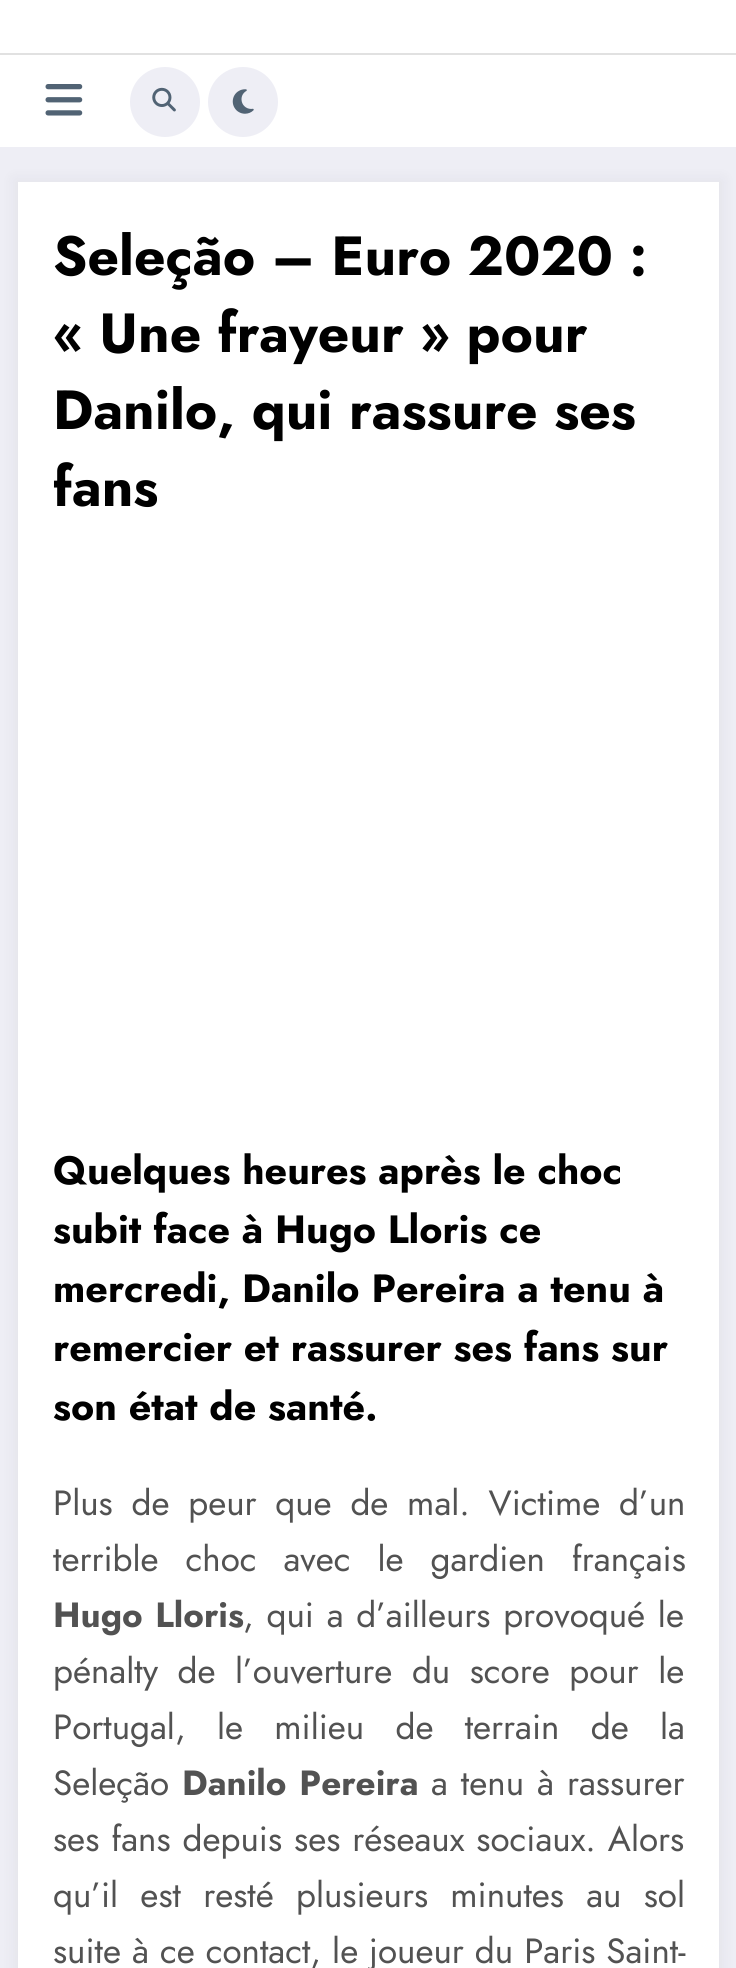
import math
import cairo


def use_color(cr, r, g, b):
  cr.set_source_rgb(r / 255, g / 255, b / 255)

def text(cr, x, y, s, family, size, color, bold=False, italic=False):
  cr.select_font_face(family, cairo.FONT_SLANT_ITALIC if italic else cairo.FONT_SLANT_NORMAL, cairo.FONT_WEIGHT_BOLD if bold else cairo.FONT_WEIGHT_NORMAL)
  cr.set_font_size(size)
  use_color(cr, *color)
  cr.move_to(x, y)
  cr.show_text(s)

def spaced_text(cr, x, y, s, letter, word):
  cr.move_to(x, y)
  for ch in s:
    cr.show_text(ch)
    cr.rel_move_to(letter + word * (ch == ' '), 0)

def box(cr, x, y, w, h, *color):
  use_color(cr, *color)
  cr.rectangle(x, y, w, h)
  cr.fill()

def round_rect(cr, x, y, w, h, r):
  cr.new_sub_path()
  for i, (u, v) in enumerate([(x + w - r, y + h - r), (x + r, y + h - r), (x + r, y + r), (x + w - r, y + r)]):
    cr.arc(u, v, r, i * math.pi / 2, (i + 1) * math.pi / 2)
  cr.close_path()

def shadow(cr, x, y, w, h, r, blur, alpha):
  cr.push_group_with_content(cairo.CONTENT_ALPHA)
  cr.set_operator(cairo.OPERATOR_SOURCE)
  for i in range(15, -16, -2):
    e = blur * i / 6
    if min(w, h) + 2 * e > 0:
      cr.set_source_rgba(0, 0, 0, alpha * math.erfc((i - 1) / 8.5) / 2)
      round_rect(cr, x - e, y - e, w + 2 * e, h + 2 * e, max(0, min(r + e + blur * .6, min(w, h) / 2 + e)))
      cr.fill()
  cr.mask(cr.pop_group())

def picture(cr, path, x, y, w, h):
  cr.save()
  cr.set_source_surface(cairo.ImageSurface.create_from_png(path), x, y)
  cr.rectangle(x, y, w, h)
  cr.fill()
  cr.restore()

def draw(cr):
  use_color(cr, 238, 238, 245)
  cr.paint()
  box(cr, 0, 0, 736, 147, 255, 255, 255)
  box(cr, 0, 53, 736, 2, 225, 225, 225)
  picture(cr, "img_01.png", 45, 84, 38, 32)
  use_color(cr, 238, 238, 245)
  cr.arc(165, 102, 35, 0, 2 * math.pi)
  cr.fill()
  picture(cr, "img_02.png", 152, 87, 24, 25)
  cr.arc(243, 102, 35, 0, 2 * math.pi)
  cr.fill()
  picture(cr, "img_03.png", 232, 89, 22, 25)
  use_color(cr, 23, 23, 35)
  shadow(cr, 14, 179, 709, 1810, 0, 7, 0.05)
  box(cr, 18, 182, 701, 1786, 255, 255, 255)
  text(cr, 53, 275, "Seleção – Euro 2020 :", "Jost", 55.1, (0, 0, 0), bold=True)
  text(cr, 53, 352, "« Une frayeur » pour", "Jost", 55.1, (0, 0, 0), bold=True)
  text(cr, 53, 429, "Danilo, qui rassure ses", "Jost", 55.1, (0, 0, 0), bold=True)
  text(cr, 53, 506, "fans", "Jost", 55.1, (0, 0, 0), bold=True)
  text(cr, 53, 1184, "Quelques heures après le choc", "Jost", 39.4, (0, 0, 0), bold=True)
  text(cr, 53, 1243, "subit face à Hugo Lloris ce", "Jost", 39.4, (0, 0, 0), bold=True)
  text(cr, 53, 1302, "mercredi, Danilo Pereira a tenu à", "Jost", 39.4, (0, 0, 0), bold=True)
  text(cr, 53, 1361, "remercier et rassurer ses fans sur", "Jost", 39.4, (0, 0, 0), bold=True)
  text(cr, 53, 1420, "son état de santé.", "Jost", 39.4, (0, 0, 0), bold=True)
  cr.select_font_face("Jost")
  cr.set_font_size(35)
  use_color(cr, 82, 82, 82)
  spaced_text(cr, 53, 1515, "Plus de peur que de mal. Victime d’un", 0, 8.25)
  spaced_text(cr, 53, 1571, "terrible choc avec le gardien français", 0, 16.5)
  cr.select_font_face("Jost", cairo.FONT_SLANT_NORMAL, cairo.FONT_WEIGHT_BOLD)
  spaced_text(cr, 53, 1627, "Hugo Lloris", 0, 2.25)
  cr.select_font_face("Jost")
  spaced_text(cr, 243, 1627, ", qui a d’ailleurs provoqué le", 0, 2.25)
  spaced_text(cr, 53, 1683, "pénalty de l’ouverture du score pour le", 0, 9)
  spaced_text(cr, 53, 1739, "Portugal, le milieu de terrain de la", 0, 20.75)
  text(cr, 53, 1795, "Seleção", "Jost", 35, (82, 82, 82))
  cr.select_font_face("Jost", cairo.FONT_SLANT_NORMAL, cairo.FONT_WEIGHT_BOLD)
  spaced_text(cr, 182, 1795, "Danilo Pereira", 0, 2.5)
  cr.select_font_face("Jost")
  spaced_text(cr, 431, 1795, "a tenu à rassurer", 0, 2.5)
  spaced_text(cr, 53, 1851, "ses fans depuis ses réseaux sociaux. Alors", 0, 1.5)
  spaced_text(cr, 53, 1907, "qu’il est resté plusieurs minutes au sol", 0, 11.75)
  spaced_text(cr, 53, 1963, "suite à ce contact, le joueur du Paris Saint-", 0, 0.5)


surface = cairo.ImageSurface(cairo.FORMAT_RGB24, 736, 1968)
cr = cairo.Context(surface)
options = cairo.FontOptions()
options.set_hint_metrics(cairo.HINT_METRICS_OFF)
options.set_hint_style(cairo.HINT_STYLE_NONE)
cr.set_font_options(options)
cr.set_miter_limit(4)
draw(cr)
surface.write_to_png("out.png")
